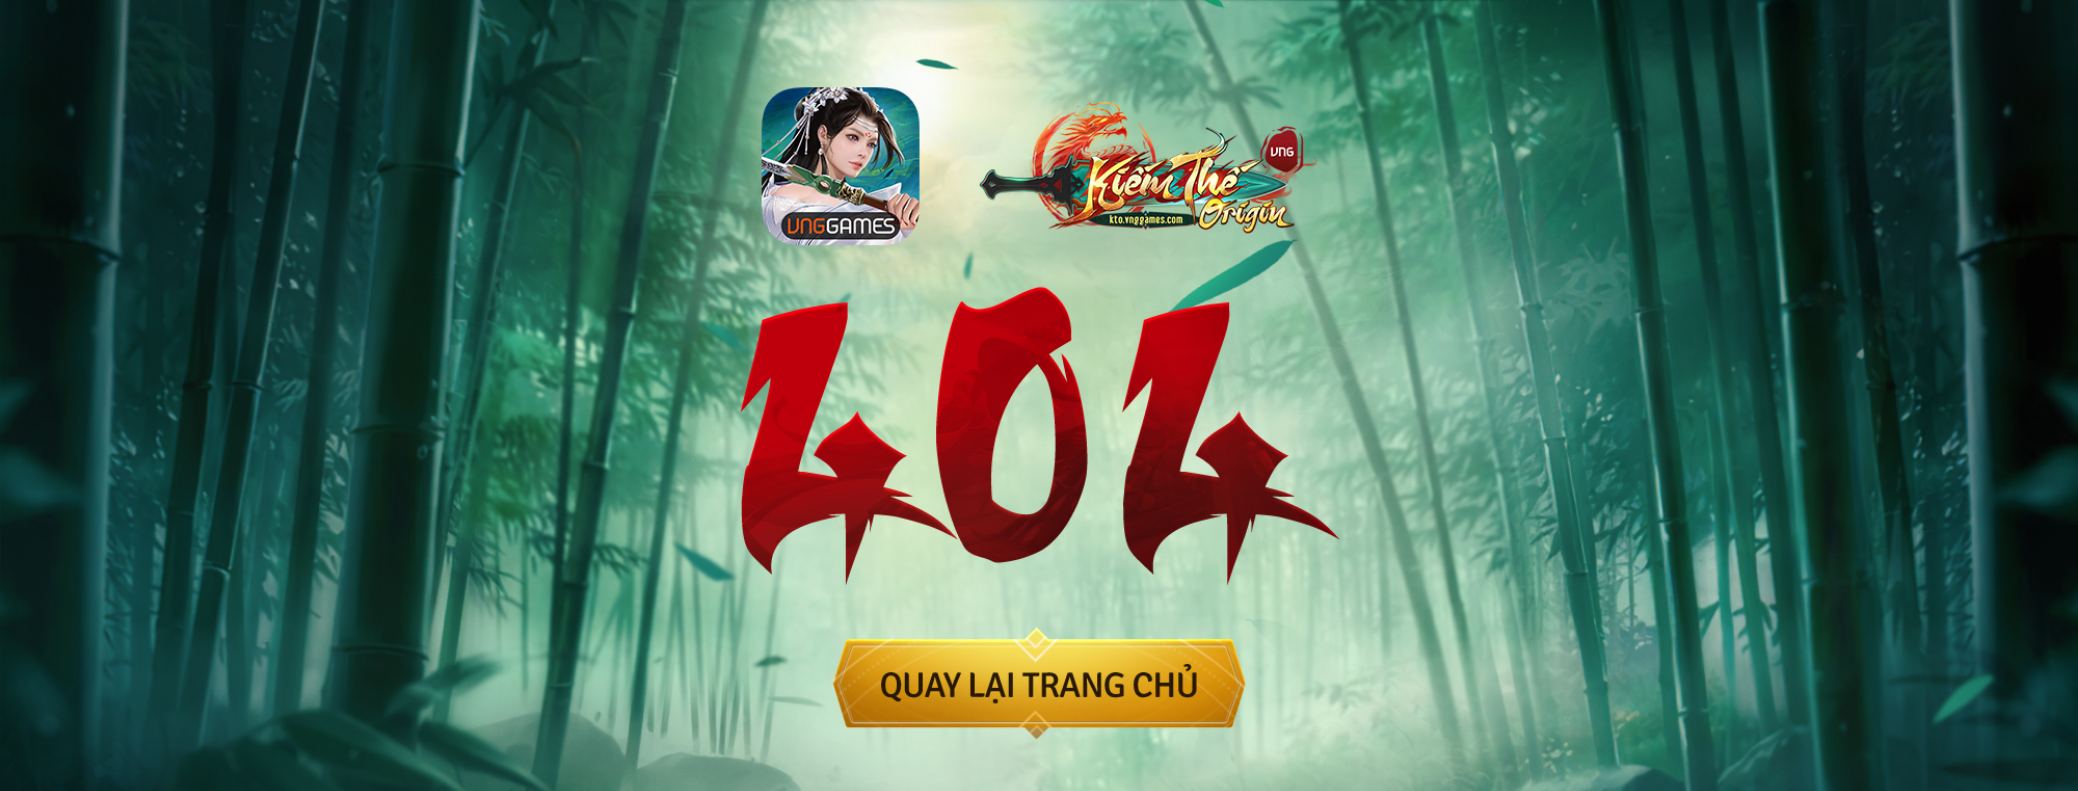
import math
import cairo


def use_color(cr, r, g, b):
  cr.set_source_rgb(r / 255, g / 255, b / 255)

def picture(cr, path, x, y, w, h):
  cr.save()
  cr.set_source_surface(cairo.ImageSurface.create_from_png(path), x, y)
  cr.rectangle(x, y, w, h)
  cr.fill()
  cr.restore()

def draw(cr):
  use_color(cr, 255, 255, 255)
  cr.paint()
  picture(cr, "img_01.png", 0, 0, 2078, 791)
  picture(cr, "img_02.png", 761, 87, 159, 159)
  picture(cr, "img_03.png", 979, 99, 339, 135)
  picture(cr, "img_04.png", 740, 286, 600, 299)
  picture(cr, "img_05.png", 832, 627, 414, 113)


surface = cairo.ImageSurface(cairo.FORMAT_RGB24, 2078, 791)
cr = cairo.Context(surface)
options = cairo.FontOptions()
options.set_hint_metrics(cairo.HINT_METRICS_OFF)
options.set_hint_style(cairo.HINT_STYLE_NONE)
cr.set_font_options(options)
cr.set_miter_limit(4)
draw(cr)
surface.write_to_png("out.png")
